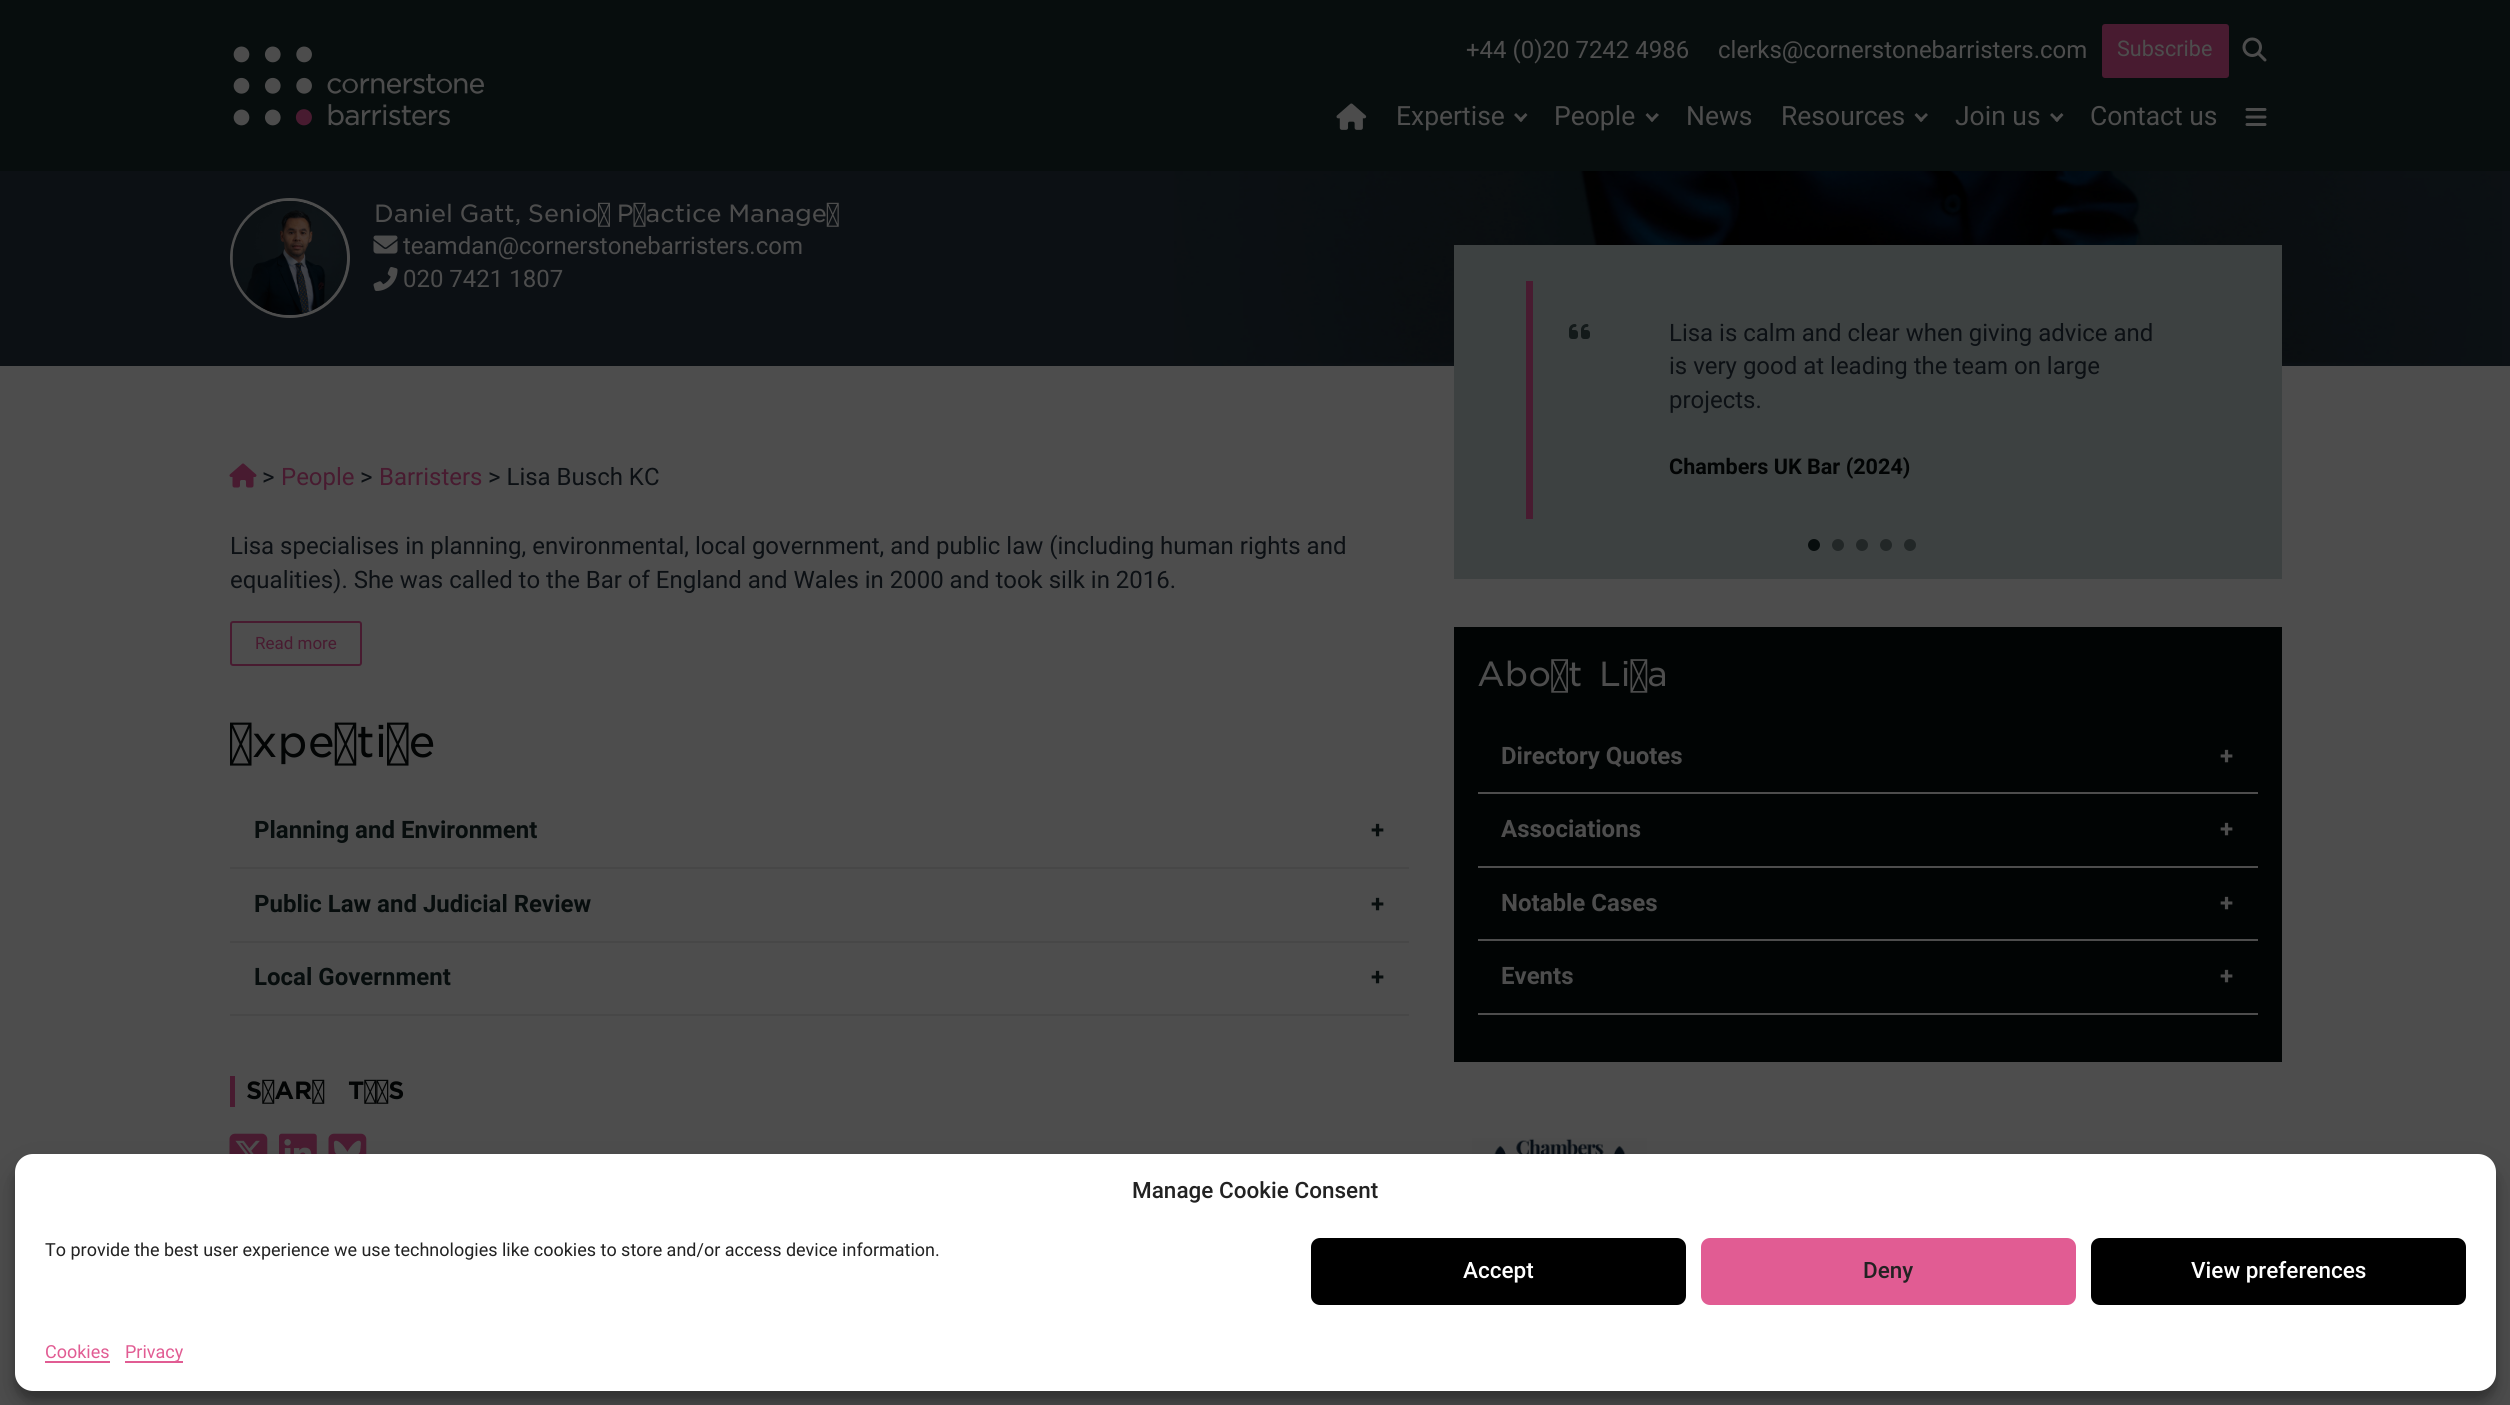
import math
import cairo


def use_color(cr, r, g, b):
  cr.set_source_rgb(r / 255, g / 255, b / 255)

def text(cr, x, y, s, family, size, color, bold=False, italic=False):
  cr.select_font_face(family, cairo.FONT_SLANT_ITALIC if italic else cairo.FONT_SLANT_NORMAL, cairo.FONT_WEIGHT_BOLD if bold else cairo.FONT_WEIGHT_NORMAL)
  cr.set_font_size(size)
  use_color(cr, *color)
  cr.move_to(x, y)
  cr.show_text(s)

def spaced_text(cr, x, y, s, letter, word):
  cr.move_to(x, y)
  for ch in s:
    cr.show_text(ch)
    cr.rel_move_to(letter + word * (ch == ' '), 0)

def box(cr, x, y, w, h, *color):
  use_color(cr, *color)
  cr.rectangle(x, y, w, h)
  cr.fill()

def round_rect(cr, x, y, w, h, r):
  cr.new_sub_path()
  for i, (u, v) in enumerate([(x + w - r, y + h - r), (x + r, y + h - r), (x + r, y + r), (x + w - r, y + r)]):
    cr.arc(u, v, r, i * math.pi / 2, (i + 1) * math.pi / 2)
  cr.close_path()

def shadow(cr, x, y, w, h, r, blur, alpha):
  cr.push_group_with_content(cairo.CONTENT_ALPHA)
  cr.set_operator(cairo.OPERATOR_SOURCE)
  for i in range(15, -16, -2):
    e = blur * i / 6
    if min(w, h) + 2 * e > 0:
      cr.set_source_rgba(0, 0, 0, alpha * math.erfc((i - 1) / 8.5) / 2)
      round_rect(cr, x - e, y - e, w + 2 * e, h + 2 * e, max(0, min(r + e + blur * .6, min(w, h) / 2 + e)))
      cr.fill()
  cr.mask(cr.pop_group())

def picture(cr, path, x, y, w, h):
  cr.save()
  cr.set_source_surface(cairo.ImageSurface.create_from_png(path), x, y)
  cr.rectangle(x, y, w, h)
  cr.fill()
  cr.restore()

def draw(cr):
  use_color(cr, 77, 77, 77)
  cr.paint()
  box(cr, 0, 0, 2510, 171, 7, 13, 13)
  picture(cr, "img_01.png", 233, 46, 251, 80)
  use_color(cr, 72, 27, 48)
  round_rect(cr, 2102, 24, 127, 54, 3)
  cr.fill()
  picture(cr, "img_02.png", 2242, 37, 25, 25)
  picture(cr, "img_03.png", 1336, 103, 31, 27)
  use_color(cr, 77, 77, 77)
  cr.new_path()
  cr.move_to(1525.5, 113)
  cr.line_to(1527.5, 115)
  cr.line_to(1521, 122)
  cr.line_to(1518.5, 120)
  cr.close_path()
  cr.fill()
  cr.new_path()
  cr.move_to(1516, 113)
  cr.line_to(1523, 120)
  cr.line_to(1521, 122)
  cr.line_to(1514, 115)
  cr.close_path()
  cr.fill()
  cr.new_path()
  cr.move_to(1656.5, 113)
  cr.line_to(1659, 115)
  cr.line_to(1652, 122)
  cr.line_to(1650, 120)
  cr.close_path()
  cr.fill()
  cr.new_path()
  cr.move_to(1647.5, 113)
  cr.line_to(1654, 120)
  cr.line_to(1652, 122)
  cr.line_to(1645.5, 115)
  cr.close_path()
  cr.fill()
  cr.new_path()
  cr.move_to(1926, 113)
  cr.line_to(1928, 115)
  cr.line_to(1921, 122)
  cr.line_to(1919, 120)
  cr.close_path()
  cr.fill()
  cr.new_path()
  cr.move_to(1916.5, 113)
  cr.line_to(1923.5, 120)
  cr.line_to(1921, 122)
  cr.line_to(1914.5, 115)
  cr.close_path()
  cr.fill()
  cr.new_path()
  cr.move_to(2061.5, 113)
  cr.line_to(2063.5, 115)
  cr.line_to(2057, 122)
  cr.line_to(2054.5, 120)
  cr.close_path()
  cr.fill()
  cr.new_path()
  cr.move_to(2052, 113)
  cr.line_to(2059, 120)
  cr.line_to(2057, 122)
  cr.line_to(2050, 115)
  cr.close_path()
  cr.fill()
  picture(cr, "img_04.png", 2245, 108, 22, 18)
  box(cr, 0, 171, 2510, 195, 12, 16, 20)
  cr.arc(290, 258, 58.5, 0, 2 * math.pi)
  use_color(cr, 77, 77, 77)
  cr.set_line_width(3)
  cr.stroke()
  picture(cr, "img_05.png", 232, 201, 115, 114)
  picture(cr, "img_06.png", 373, 235, 25, 19)
  picture(cr, "img_07.png", 373, 267, 25, 24)
  picture(cr, "img_08.png", 1174, 171, 1328, 195)
  picture(cr, "img_09.png", 229, 463, 28, 25)
  round_rect(cr, 231, 622, 130, 43, 2)
  use_color(cr, 72, 27, 48)
  cr.set_line_width(2)
  cr.stroke()
  box(cr, 230, 867, 1179, 2, 71, 71, 71)
  box(cr, 230, 941, 1179, 2, 71, 71, 71)
  box(cr, 230, 1014, 1179, 2, 71, 71, 71)
  box(cr, 230, 1076, 5, 31, 72, 27, 48)
  picture(cr, "img_10.png", 229, 1133, 39, 21)
  picture(cr, "img_11.png", 279, 1133, 38, 21)
  picture(cr, "img_12.png", 328, 1133, 39, 21)
  box(cr, 1454, 245, 828, 334, 61, 65, 65)
  box(cr, 1526, 281, 7, 238, 72, 27, 48)
  picture(cr, "img_13.png", 1569, 324, 21, 15)
  use_color(cr, 7, 13, 13)
  cr.arc(1814, 545, 6, 0, 2 * math.pi)
  cr.fill()
  use_color(cr, 34, 39, 39)
  cr.arc(1838, 545, 6, 0, 2 * math.pi)
  cr.fill()
  cr.arc(1862, 545, 6, 0, 2 * math.pi)
  cr.fill()
  cr.arc(1886, 545, 6, 0, 2 * math.pi)
  cr.fill()
  cr.arc(1910, 545, 6, 0, 2 * math.pi)
  cr.fill()
  box(cr, 1454, 627, 828, 435, 1, 4, 4)
  box(cr, 1478, 792, 780, 2, 77, 77, 77)
  box(cr, 1478, 866, 780, 2, 77, 77, 77)
  box(cr, 1478, 939, 780, 2, 77, 77, 77)
  box(cr, 1478, 1013, 780, 2, 77, 77, 77)
  picture(cr, "img_14.png", 1472, 1138, 175, 16)
  use_color(cr, 0, 0, 0)
  shadow(cr, 15, 1163, 2481, 237, 18, 4.5, 0.23)
  shadow(cr, 15, 1169, 2481, 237, 18, 15, 0.19)
  use_color(cr, 255, 255, 255)
  round_rect(cr, 15, 1154, 2481, 237, 18)
  cr.fill()
  use_color(cr, 0, 0, 0)
  round_rect(cr, 1312, 1239, 373, 65, 8)
  cr.fill_preserve()
  cr.stroke()
  use_color(cr, 225, 92, 147)
  round_rect(cr, 1702, 1239, 373, 65, 8)
  cr.fill_preserve()
  cr.stroke()
  use_color(cr, 0, 0, 0)
  round_rect(cr, 2092, 1239, 373, 65, 8)
  cr.fill_preserve()
  cr.stroke()
  box(cr, 45, 1361, 65, 2, 225, 92, 147)
  box(cr, 125, 1361, 58, 2, 225, 92, 147)
  text(cr, 1466, 58, "+44 (0)20 7242 4986", "Roboto", 24, (77, 77, 77))
  text(cr, 1718, 58, "clerks@cornerstonebarristers.com", "Roboto", 24, (77, 77, 77))
  text(cr, 2117, 56, "Subscribe", "Roboto", 21.6, (77, 77, 77))
  text(cr, 1396, 125, "Expertise", "Roboto", 26.5, (77, 77, 77))
  text(cr, 1554, 125, "People", "Roboto", 26.5, (77, 77, 77))
  text(cr, 1686, 125, "News", "Roboto", 26.5, (77, 77, 77))
  text(cr, 1781, 125, "Resources", "Roboto", 26.5, (77, 77, 77))
  text(cr, 1955, 125, "Join us", "Roboto", 26.5, (77, 77, 77))
  text(cr, 2090, 125, "Contact us", "Roboto", 26.5, (77, 77, 77))
  cr.select_font_face("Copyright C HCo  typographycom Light")
  cr.set_font_size(24)
  spaced_text(cr, 374, 222, "Daniel Gatt, Senior Practice Manager", 0, -1)
  text(cr, 403, 254, "teamdan@cornerstonebarristers.com", "Roboto", 24, (77, 77, 77))
  text(cr, 403, 287, "020 7421 1807", "Roboto", 24, (77, 77, 77))
  text(cr, 262, 485, ">", "Roboto", 24, (12, 16, 20))
  text(cr, 281, 485, "People", "Roboto", 24, (72, 27, 48))
  text(cr, 360, 485, ">", "Roboto", 24, (12, 16, 20))
  text(cr, 379, 485, "Barristers", "Roboto", 24, (72, 27, 48))
  text(cr, 488, 485, "> Lisa Busch KC", "Roboto", 24, (12, 16, 20))
  text(cr, 230, 554, "Lisa specialises in planning, environmental, local government, and public law (including human rights and", "Roboto", 24, (12, 16, 20))
  text(cr, 230, 588, "equalities). She was called to the Bar of England and Wales in 2000 and took silk in 2016.", "Roboto", 24, (12, 16, 20))
  text(cr, 255, 649, "Read more", "Roboto", 17, (72, 27, 48))
  text(cr, 230, 757, "Expertise", "Copyright C HCo  typographycom Light", 43, (2, 4, 4))
  text(cr, 254, 838, "Planning and Environment", "Roboto", 24, (7, 13, 13), bold=True)
  text(cr, 1371, 838, "+", "Roboto", 24, (7, 13, 13), bold=True)
  text(cr, 254, 912, "Public Law and Judicial Review", "Roboto", 24, (7, 13, 13), bold=True)
  text(cr, 1371, 912, "+", "Roboto", 24, (7, 13, 13), bold=True)
  text(cr, 254, 985, "Local Government", "Roboto", 24, (7, 13, 13), bold=True)
  text(cr, 1371, 985, "+", "Roboto", 24, (7, 13, 13), bold=True)
  cr.select_font_face("Copyright C HCo  typographycom")
  use_color(cr, 2, 4, 4)
  spaced_text(cr, 246, 1099, "SHARE THIS", 0, 16)
  text(cr, 1669, 341, "Lisa is calm and clear when giving advice and", "Roboto", 24, (12, 16, 20))
  text(cr, 1669, 374, "is very good at leading the team on large", "Roboto", 24, (12, 16, 20))
  text(cr, 1669, 408, "projects.", "Roboto", 24, (12, 16, 20))
  text(cr, 1669, 474, "Chambers UK Bar (2024)", "Roboto", 21.6, (2, 4, 4), bold=True)
  cr.select_font_face("Copyright C HCo  typographycom Light")
  cr.set_font_size(33.5)
  use_color(cr, 77, 77, 77)
  spaced_text(cr, 1477, 686, "About Lisa", 0, 6)
  text(cr, 1501, 764, "Directory Quotes", "Roboto", 24, (77, 77, 77), bold=True)
  text(cr, 2220, 764, "+", "Roboto", 24, (77, 77, 77), bold=True)
  text(cr, 1501, 837, "Associations", "Roboto", 24, (77, 77, 77), bold=True)
  text(cr, 2220, 837, "+", "Roboto", 24, (77, 77, 77), bold=True)
  text(cr, 1501, 911, "Notable Cases", "Roboto", 24, (77, 77, 77), bold=True)
  text(cr, 2220, 911, "+", "Roboto", 24, (77, 77, 77), bold=True)
  text(cr, 1501, 984, "Events", "Roboto", 24, (77, 77, 77), bold=True)
  text(cr, 2220, 984, "+", "Roboto", 24, (77, 77, 77), bold=True)
  text(cr, 1132, 1198, "Manage Cookie Consent", "Roboto Medium", 22.5, (34, 34, 34))
  text(cr, 45, 1256, "To provide the best user experience we use technologies like cookies to store and/or access device information.", "Roboto", 18, (34, 34, 34))
  text(cr, 1463, 1278, "Accept", "Roboto Medium", 22.5, (255, 255, 255))
  text(cr, 1863, 1278, "Deny", "Roboto Medium", 22.5, (34, 34, 34))
  text(cr, 2191, 1278, "View preferences", "Roboto Medium", 22.5, (255, 255, 255))
  text(cr, 45, 1358, "Cookies", "Roboto", 18, (225, 92, 147))
  text(cr, 125, 1358, "Privacy", "Roboto", 18, (225, 92, 147))


surface = cairo.ImageSurface(cairo.FORMAT_RGB24, 2510, 1405)
cr = cairo.Context(surface)
options = cairo.FontOptions()
options.set_hint_metrics(cairo.HINT_METRICS_OFF)
options.set_hint_style(cairo.HINT_STYLE_NONE)
cr.set_font_options(options)
cr.set_miter_limit(4)
draw(cr)
surface.write_to_png("out.png")
